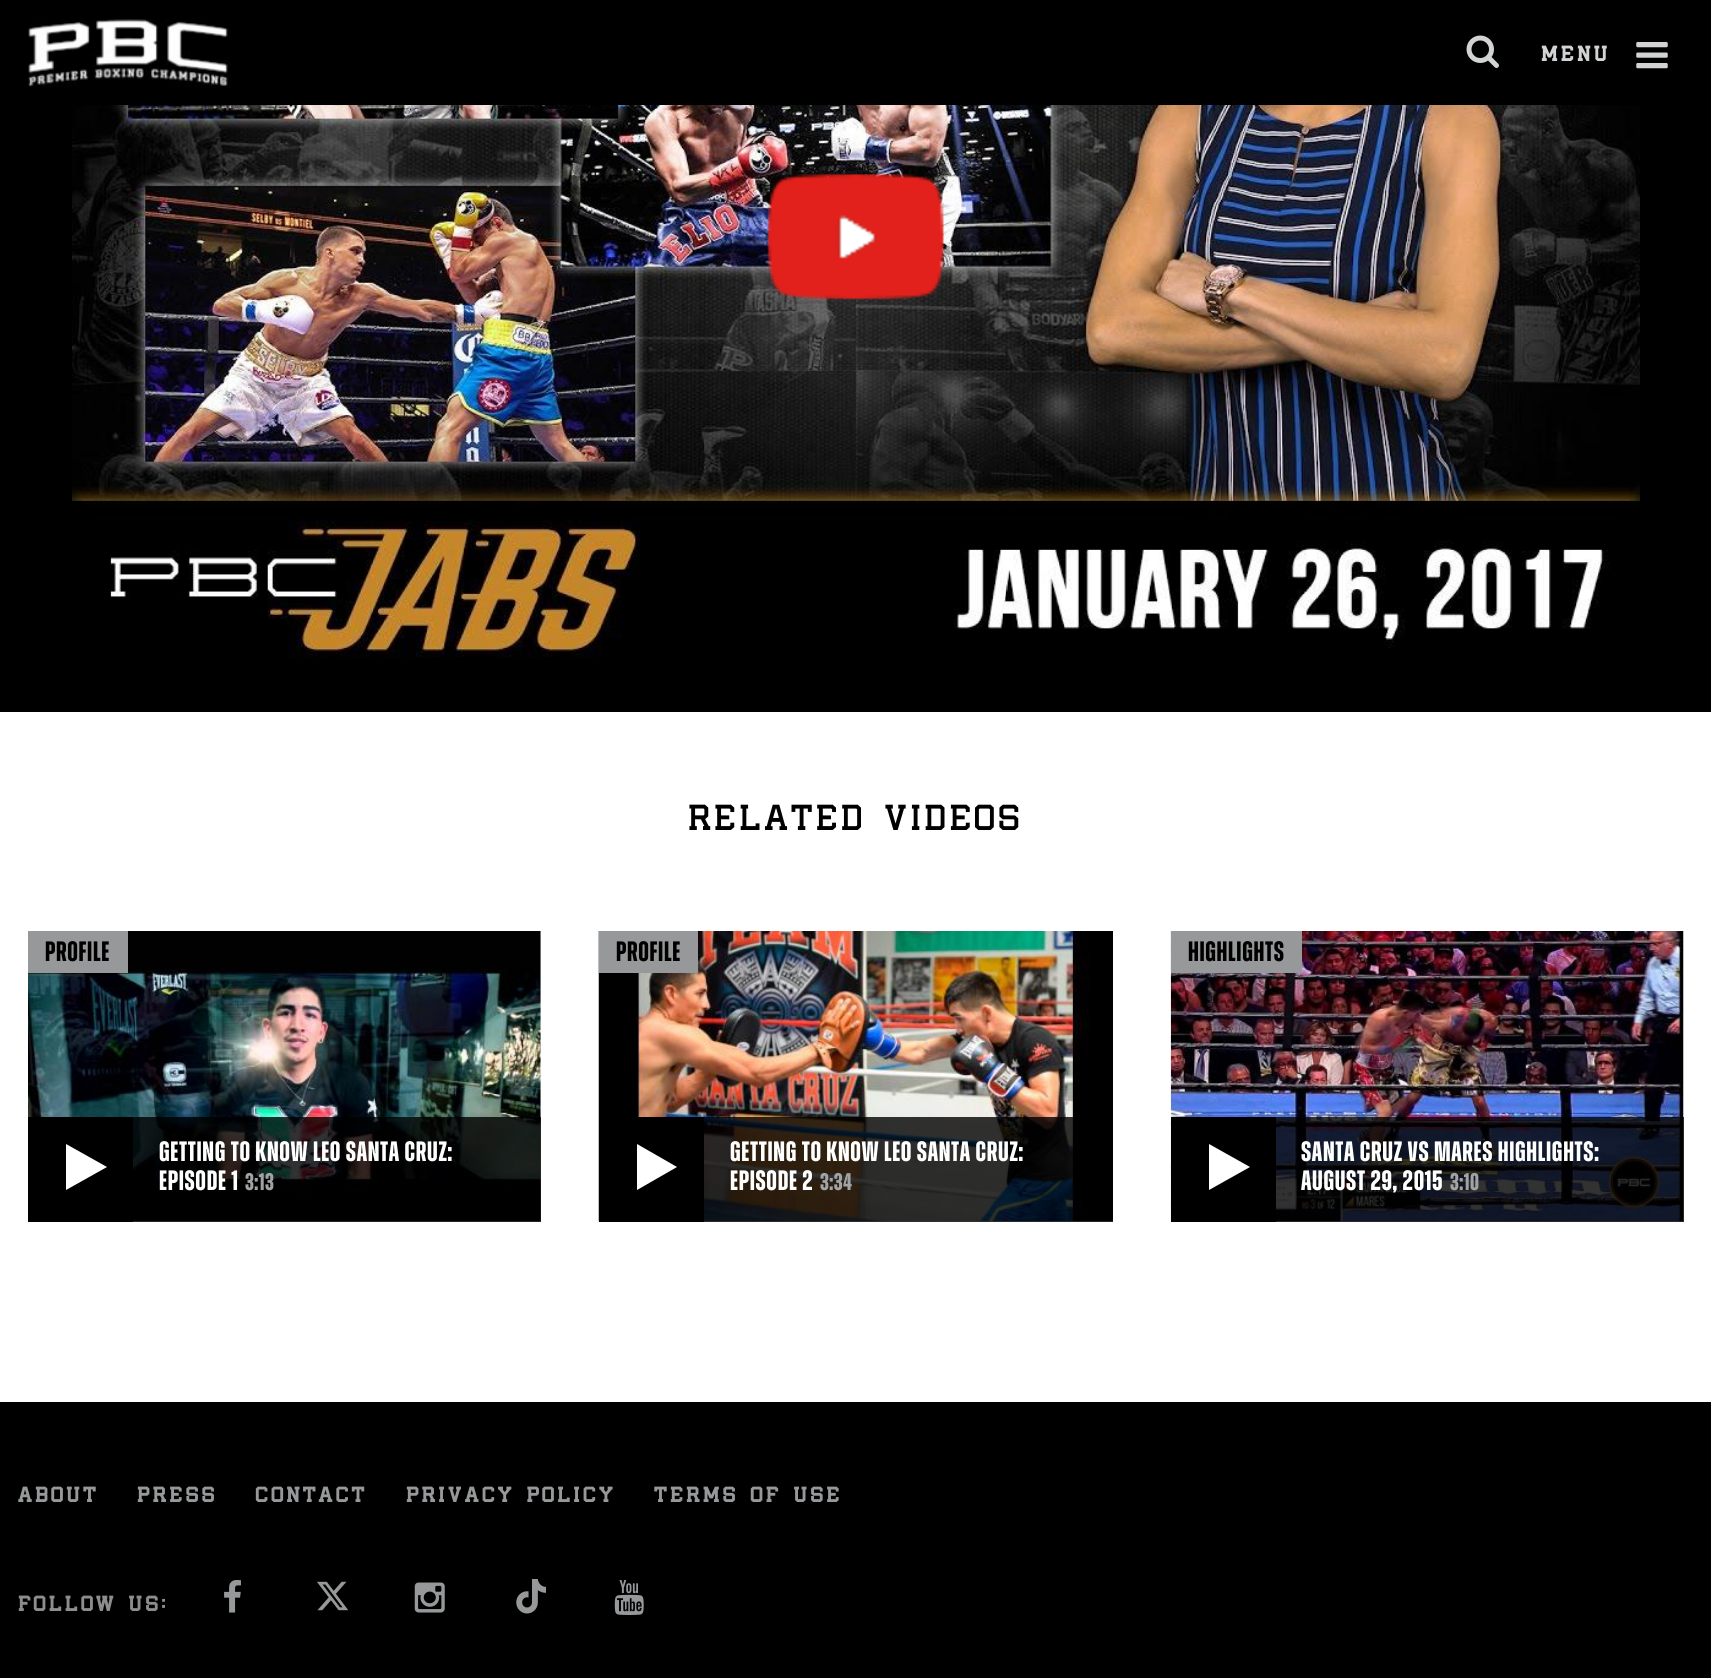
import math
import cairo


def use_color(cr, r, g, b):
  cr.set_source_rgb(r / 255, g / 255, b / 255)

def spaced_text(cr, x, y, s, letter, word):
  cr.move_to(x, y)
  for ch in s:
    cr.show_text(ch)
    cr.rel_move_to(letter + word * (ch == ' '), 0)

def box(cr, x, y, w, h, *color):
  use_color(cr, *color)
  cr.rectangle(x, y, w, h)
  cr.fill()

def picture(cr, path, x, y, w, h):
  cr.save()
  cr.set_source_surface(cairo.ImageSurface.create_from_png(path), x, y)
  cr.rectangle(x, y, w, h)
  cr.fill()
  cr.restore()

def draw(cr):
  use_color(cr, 255, 255, 255)
  cr.paint()
  box(cr, 0, 0, 1711, 712, 0, 0, 0)
  picture(cr, "img_01.png", 72, 105, 1568, 553)
  picture(cr, "img_02.png", 767, 174, 177, 126)
  picture(cr, "img_03.png", 28, 19, 202, 68)
  picture(cr, "img_04.png", 1466, 35, 33, 33)
  picture(cr, "img_05.png", 1636, 42, 32, 27)
  picture(cr, "img_06.png", 28, 931, 513, 291)
  box(cr, 28, 931, 100, 42, 151, 152, 153)
  cr.set_source_rgba(0, 0, 0, 0.8)
  cr.rectangle(133, 1117, 408, 105)
  cr.fill()
  box(cr, 28, 1117, 105, 105, 0, 0, 0)
  use_color(cr, 255, 255, 255)
  cr.new_path()
  cr.move_to(66, 1190)
  cr.line_to(66, 1144)
  cr.line_to(107, 1167)
  cr.close_path()
  cr.fill()
  picture(cr, "img_07.png", 598, 931, 515, 291)
  box(cr, 599, 931, 99, 42, 151, 152, 153)
  cr.set_source_rgba(0, 0, 0, 0.8)
  cr.rectangle(704, 1117, 409, 105)
  cr.fill()
  box(cr, 599, 1117, 105, 105, 0, 0, 0)
  use_color(cr, 255, 255, 255)
  cr.new_path()
  cr.move_to(637, 1190)
  cr.line_to(637, 1144)
  cr.line_to(677, 1167)
  cr.close_path()
  cr.fill()
  picture(cr, "img_08.png", 1170, 931, 514, 291)
  box(cr, 1171, 931, 131, 42, 151, 152, 153)
  cr.set_source_rgba(0, 0, 0, 0.8)
  cr.rectangle(1276, 1117, 408, 105)
  cr.fill()
  box(cr, 1171, 1117, 105, 105, 0, 0, 0)
  use_color(cr, 255, 255, 255)
  cr.new_path()
  cr.move_to(1209, 1190)
  cr.line_to(1209, 1144)
  cr.line_to(1250, 1167)
  cr.close_path()
  cr.fill()
  box(cr, 0, 1402, 1711, 276, 0, 0, 0)
  picture(cr, "img_09.png", 224, 1580, 17, 33)
  picture(cr, "img_10.png", 317, 1581, 32, 30)
  picture(cr, "img_11.png", 414, 1582, 31, 31)
  picture(cr, "img_12.png", 516, 1579, 30, 35)
  picture(cr, "img_13.png", 614, 1580, 30, 35)
  cr.select_font_face("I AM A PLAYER", cairo.FONT_SLANT_NORMAL, cairo.FONT_WEIGHT_BOLD)
  cr.set_font_size(21)
  use_color(cr, 209, 211, 212)
  spaced_text(cr, 1541, 61, "MENU", 3.5, 0)
  cr.select_font_face("I AM A PLAYER")
  cr.set_font_size(36)
  use_color(cr, 0, 0, 0)
  spaced_text(cr, 688, 830, "RELATED VIDEOS", 3.5, 0)
  cr.select_font_face("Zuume", cairo.FONT_SLANT_NORMAL, cairo.FONT_WEIGHT_BOLD)
  cr.set_font_size(28)
  spaced_text(cr, 45, 961, "PROFILE", 0.7, 0)
  use_color(cr, 255, 255, 255)
  spaced_text(cr, 159, 1161, "GETTING TO KNOW LEO SANTA CRUZ:", 0.7, 0)
  spaced_text(cr, 159, 1190, "EPISODE 1", 0.7, 0)
  cr.set_font_size(24)
  use_color(cr, 161, 163, 164)
  spaced_text(cr, 245, 1190, "3:13", 0.5, 0)
  cr.set_font_size(28)
  use_color(cr, 0, 0, 0)
  spaced_text(cr, 616, 961, "PROFILE", 0.7, 0)
  use_color(cr, 255, 255, 255)
  spaced_text(cr, 730, 1161, "GETTING TO KNOW LEO SANTA CRUZ:", 0.7, 0)
  spaced_text(cr, 730, 1190, "EPISODE 2", 0.7, 0)
  cr.set_font_size(24)
  use_color(cr, 161, 163, 164)
  spaced_text(cr, 820, 1190, "3:34", 0.5, 0)
  cr.set_font_size(28)
  use_color(cr, 0, 0, 0)
  spaced_text(cr, 1188, 961, "HIGHLIGHTS", 0.7, 0)
  use_color(cr, 255, 255, 255)
  spaced_text(cr, 1301, 1161, "SANTA CRUZ VS MARES HIGHLIGHTS:", 0.7, 0)
  spaced_text(cr, 1301, 1190, "AUGUST 29, 2015", 0.7, 0)
  cr.set_font_size(24)
  use_color(cr, 161, 163, 164)
  spaced_text(cr, 1450, 1190, "3:10", 0.5, 0)
  cr.select_font_face("I AM A PLAYER", cairo.FONT_SLANT_NORMAL, cairo.FONT_WEIGHT_BOLD)
  cr.set_font_size(21)
  use_color(cr, 151, 152, 153)
  spaced_text(cr, 18, 1502, "ABOUT", 3.5, 0)
  spaced_text(cr, 137, 1502, "PRESS", 3.5, 0)
  spaced_text(cr, 255, 1502, "CONTACT", 3.5, 0)
  spaced_text(cr, 406, 1502, "PRIVACY POLICY", 3.5, 0)
  spaced_text(cr, 654, 1502, "TERMS OF USE", 3.5, 0)
  use_color(cr, 141, 141, 141)
  spaced_text(cr, 18, 1611, "FOLLOW US:", 3.5, 0)


surface = cairo.ImageSurface(cairo.FORMAT_RGB24, 1711, 1678)
cr = cairo.Context(surface)
options = cairo.FontOptions()
options.set_hint_metrics(cairo.HINT_METRICS_OFF)
options.set_hint_style(cairo.HINT_STYLE_NONE)
cr.set_font_options(options)
cr.set_miter_limit(4)
draw(cr)
surface.write_to_png("out.png")
